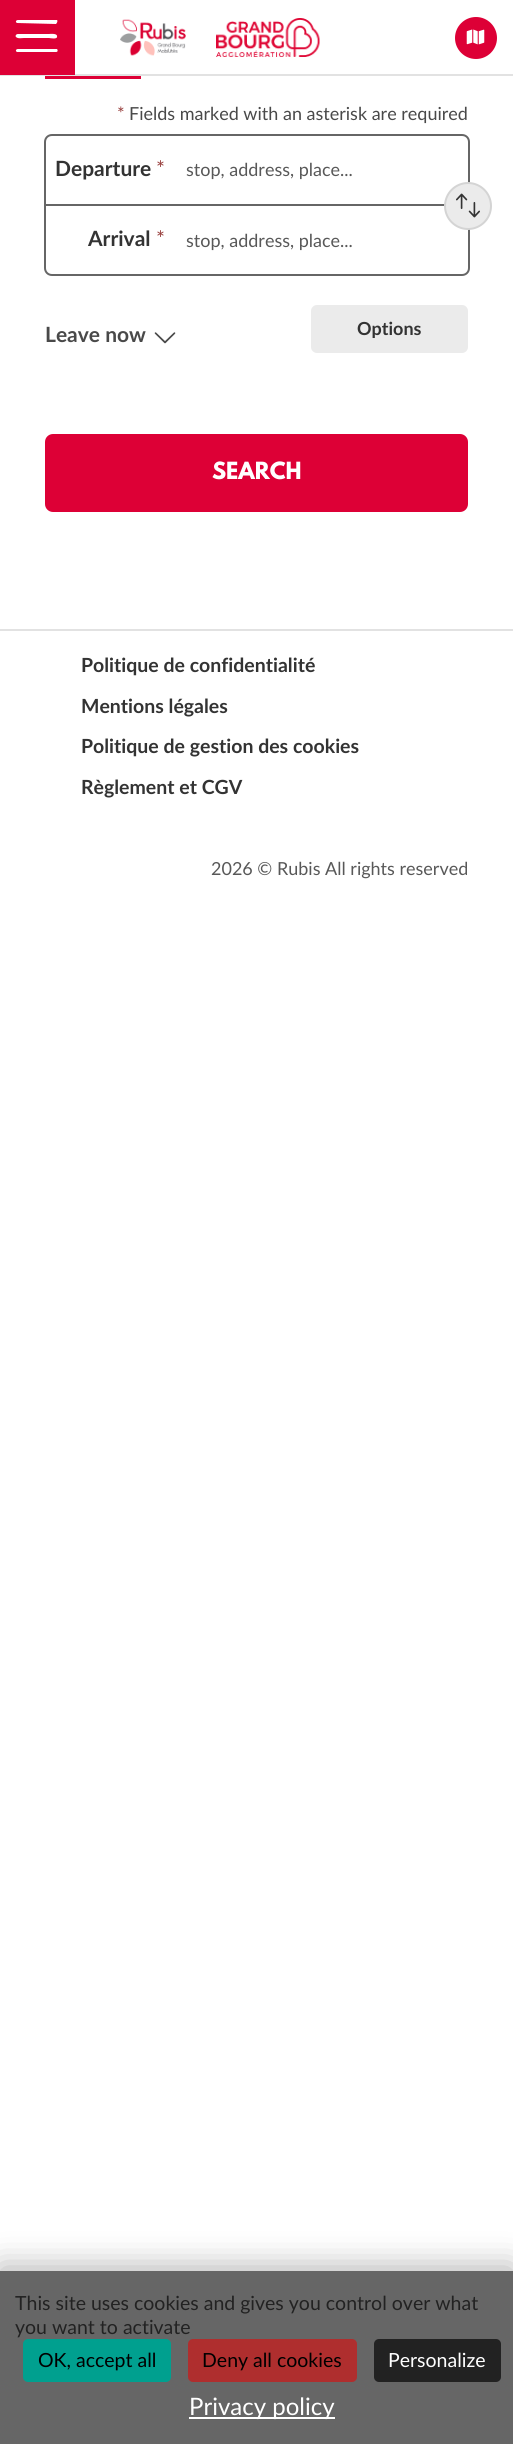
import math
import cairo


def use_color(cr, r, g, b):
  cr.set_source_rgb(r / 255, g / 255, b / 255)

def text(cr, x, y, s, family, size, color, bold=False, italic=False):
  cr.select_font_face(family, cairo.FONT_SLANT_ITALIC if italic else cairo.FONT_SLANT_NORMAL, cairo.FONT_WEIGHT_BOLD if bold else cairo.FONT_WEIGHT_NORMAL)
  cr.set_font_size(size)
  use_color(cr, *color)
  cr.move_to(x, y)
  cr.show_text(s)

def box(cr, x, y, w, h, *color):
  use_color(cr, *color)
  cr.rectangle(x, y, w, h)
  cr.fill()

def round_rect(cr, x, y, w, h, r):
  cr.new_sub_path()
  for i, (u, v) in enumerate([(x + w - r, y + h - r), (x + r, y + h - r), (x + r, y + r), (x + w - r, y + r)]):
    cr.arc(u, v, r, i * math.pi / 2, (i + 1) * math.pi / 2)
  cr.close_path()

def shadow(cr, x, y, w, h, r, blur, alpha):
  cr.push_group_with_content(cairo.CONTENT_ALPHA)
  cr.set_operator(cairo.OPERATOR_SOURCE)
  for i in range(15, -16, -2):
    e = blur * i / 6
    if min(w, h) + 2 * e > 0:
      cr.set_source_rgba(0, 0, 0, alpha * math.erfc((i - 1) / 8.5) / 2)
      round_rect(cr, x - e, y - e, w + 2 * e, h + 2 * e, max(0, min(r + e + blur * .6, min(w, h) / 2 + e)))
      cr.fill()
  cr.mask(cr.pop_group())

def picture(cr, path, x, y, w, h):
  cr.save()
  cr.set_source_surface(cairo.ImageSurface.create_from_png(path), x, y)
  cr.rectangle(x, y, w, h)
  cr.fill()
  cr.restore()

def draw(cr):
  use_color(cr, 255, 255, 255)
  cr.paint()
  shadow(cr, 429, 9, 66, 78, 0, 22.5, 1)
  box(cr, 0, 74, 513, 2, 226, 226, 226)
  box(cr, 0, 0, 75, 75, 221, 0, 54)
  use_color(cr, 255, 255, 255)
  cr.new_path()
  cr.move_to(18, 20)
  cr.line_to(57, 20)
  cr.curve_to(58, 21, 57, 23, 56, 24)
  cr.line_to(17, 23)
  cr.curve_to(15, 22, 16, 20, 18, 20)
  cr.close_path()
  cr.move_to(18, 34)
  cr.line_to(49, 34)
  cr.curve_to(49, 34, 57, 33, 57, 36)
  cr.curve_to(58, 40, 50, 38, 49, 38)
  cr.line_to(24, 38)
  cr.curve_to(22, 38, 18, 39, 16, 37)
  cr.curve_to(15, 36, 16, 34, 18, 34)
  cr.close_path()
  cr.move_to(18, 49)
  cr.line_to(57, 49)
  cr.curve_to(58, 50, 58, 52, 56, 52)
  cr.line_to(17, 52)
  cr.curve_to(15, 51, 16, 49, 18, 49)
  cr.close_path()
  cr.fill()
  picture(cr, "img_01.png", 120, 19, 66, 37)
  picture(cr, "img_02.png", 216, 18, 104, 39)
  use_color(cr, 221, 0, 54)
  cr.arc(476, 38, 21, 0, 2 * math.pi)
  cr.fill()
  picture(cr, "img_03.png", 466, 29, 19, 16)
  box(cr, 45, 76, 96, 3, 221, 0, 54)
  cr.new_path()
  cr.move_to(52, 135)
  cr.line_to(462, 135)
  cr.curve_to(466, 135, 469, 138, 469, 142)
  cr.line_to(469, 205)
  cr.line_to(45, 205)
  cr.line_to(45, 142)
  cr.curve_to(45, 138, 48, 135, 52, 135)
  cr.close_path()
  use_color(cr, 102, 102, 102)
  cr.stroke()
  cr.new_path()
  cr.move_to(45, 205)
  cr.line_to(469, 205)
  cr.line_to(469, 268)
  cr.curve_to(469, 272, 466, 275, 462, 275)
  cr.line_to(52, 275)
  cr.curve_to(48, 275, 45, 272, 45, 268)
  cr.close_path()
  cr.stroke()
  use_color(cr, 235, 235, 235)
  cr.arc(468, 206, 23, 0, 2 * math.pi)
  cr.fill_preserve()
  use_color(cr, 212, 212, 212)
  cr.stroke()
  picture(cr, "img_04.png", 456, 193, 24, 25)
  picture(cr, "img_05.png", 154, 332, 22, 12)
  use_color(cr, 235, 235, 235)
  round_rect(cr, 312, 306, 155, 46, 5)
  cr.fill_preserve()
  cr.stroke()
  use_color(cr, 221, 0, 54)
  round_rect(cr, 45, 434, 423, 78, 8)
  cr.fill()
  box(cr, 0, 629, 513, 2, 226, 226, 226)
  use_color(cr, 0, 0, 0)
  shadow(cr, 0, 2268, 513, 174, 0, 17, 0.32)
  box(cr, 0, 2271, 513, 173, 102, 102, 102)
  use_color(cr, 0, 160, 143)
  round_rect(cr, 23, 2339, 148, 43, 5)
  cr.fill()
  use_color(cr, 175, 46, 46)
  round_rect(cr, 188, 2339, 169, 43, 5)
  cr.fill()
  use_color(cr, 34, 34, 34)
  round_rect(cr, 374, 2339, 127, 43, 5)
  cr.fill()
  box(cr, 189, 2417, 146, 2, 255, 255, 255)
  text(cr, 117, 120, "*", "Lato", 18, (151, 61, 59))
  text(cr, 129, 120, "Fields marked with an asterisk are required", "Lato", 18, (73, 73, 73))
  text(cr, 55, 176, "Departure", "Lato", 21, (51, 51, 51), bold=True)
  text(cr, 156, 176, "*", "Lato", 21, (151, 61, 59))
  text(cr, 186, 176, "stop, address, place...", "Lato", 18, (88, 88, 88))
  text(cr, 88, 246, "Arrival", "Lato", 21, (51, 51, 51), bold=True)
  text(cr, 156, 246, "*", "Lato", 21, (151, 61, 59))
  text(cr, 186, 247, "stop, address, place...", "Lato", 18, (88, 88, 88))
  text(cr, 45, 342, "Leave now", "Lato", 21, (73, 73, 73), bold=True)
  text(cr, 357, 335, "Options", "Lato", 18, (51, 51, 51), bold=True)
  text(cr, 212, 479, "SEARCH", "League Spartan", 21, (255, 255, 255), bold=True)
  text(cr, 81, 672, "Politique de confidentialité", "Lato", 19.5, (51, 51, 51), bold=True)
  text(cr, 81, 713, "Mentions légales", "Lato", 19.5, (51, 51, 51), bold=True)
  text(cr, 81, 753, "Politique de gestion des cookies", "Lato", 19.5, (51, 51, 51), bold=True)
  text(cr, 81, 794, "Règlement et CGV", "Lato", 19.5, (51, 51, 51), bold=True)
  text(cr, 211, 875, "2026 © Rubis All rights reserved", "Lato", 18, (88, 88, 88))
  text(cr, 15, 2310, "This site uses cookies and gives you control over what", "Lato", 19.5, (34, 34, 34))
  text(cr, 15, 2334, "you want to activate", "Lato", 19.5, (34, 34, 34))
  text(cr, 38, 2367, "OK, accept all", "Lato", 19.5, (0, 0, 0))
  text(cr, 202, 2367, "Deny all cookies", "Lato", 19.5, (0, 0, 0))
  text(cr, 388, 2367, "Personalize", "Lato", 19.5, (255, 255, 255))
  text(cr, 189, 2415, "Privacy policy", "Lato", 24, (255, 255, 255))


surface = cairo.ImageSurface(cairo.FORMAT_RGB24, 513, 2444)
cr = cairo.Context(surface)
options = cairo.FontOptions()
options.set_hint_metrics(cairo.HINT_METRICS_OFF)
options.set_hint_style(cairo.HINT_STYLE_NONE)
cr.set_font_options(options)
cr.set_miter_limit(4)
draw(cr)
surface.write_to_png("out.png")
